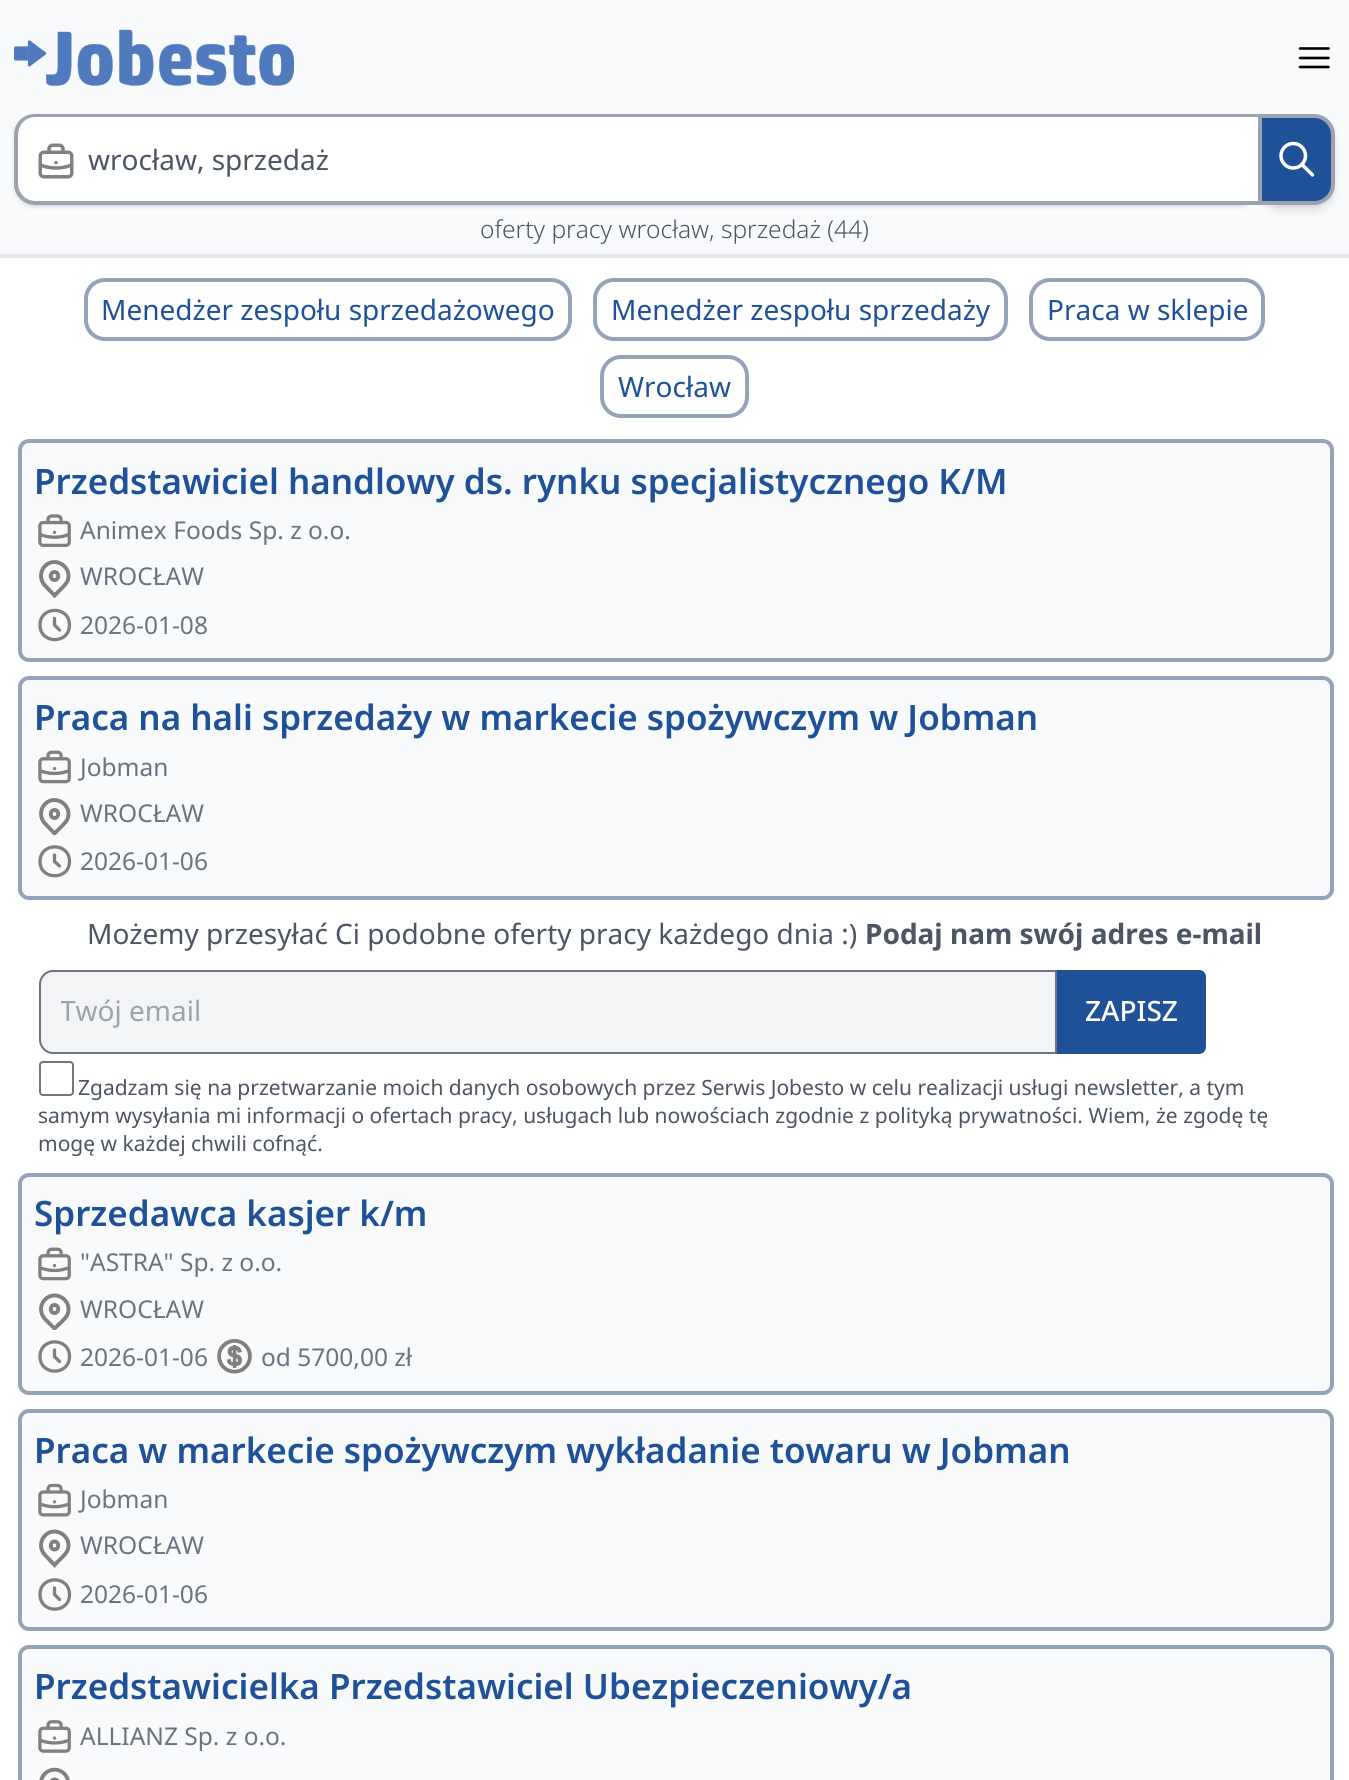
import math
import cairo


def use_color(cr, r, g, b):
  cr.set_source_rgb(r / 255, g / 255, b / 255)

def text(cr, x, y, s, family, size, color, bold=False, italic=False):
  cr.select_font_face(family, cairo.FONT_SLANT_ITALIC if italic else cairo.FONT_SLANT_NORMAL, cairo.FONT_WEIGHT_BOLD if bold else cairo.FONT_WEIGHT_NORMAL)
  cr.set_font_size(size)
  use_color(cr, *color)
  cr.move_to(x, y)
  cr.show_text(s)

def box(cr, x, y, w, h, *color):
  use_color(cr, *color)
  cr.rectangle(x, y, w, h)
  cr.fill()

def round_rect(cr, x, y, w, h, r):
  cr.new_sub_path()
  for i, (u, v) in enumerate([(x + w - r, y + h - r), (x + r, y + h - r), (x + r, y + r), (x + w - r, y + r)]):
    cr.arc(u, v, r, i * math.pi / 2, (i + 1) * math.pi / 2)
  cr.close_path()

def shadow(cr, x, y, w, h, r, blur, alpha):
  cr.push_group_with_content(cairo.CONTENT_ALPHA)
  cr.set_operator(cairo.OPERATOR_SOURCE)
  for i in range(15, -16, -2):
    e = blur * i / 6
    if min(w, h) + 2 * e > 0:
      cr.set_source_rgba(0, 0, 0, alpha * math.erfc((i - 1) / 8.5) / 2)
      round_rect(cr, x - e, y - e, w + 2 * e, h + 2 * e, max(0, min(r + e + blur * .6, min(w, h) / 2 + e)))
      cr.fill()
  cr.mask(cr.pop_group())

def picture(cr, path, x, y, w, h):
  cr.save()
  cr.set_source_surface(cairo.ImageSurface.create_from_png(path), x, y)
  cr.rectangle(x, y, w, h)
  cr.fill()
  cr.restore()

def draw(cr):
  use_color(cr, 255, 255, 255)
  cr.paint()
  box(cr, 0, 0, 1349, 254, 249, 250, 251)
  picture(cr, "img_01.png", 14, 29, 280, 57)
  cr.new_path()
  cr.move_to(1300, 48.5)
  cr.line_to(1328.5, 48.5)
  cr.move_to(1300, 58)
  cr.line_to(1328.5, 58)
  cr.move_to(1300, 67)
  cr.line_to(1328.5, 67)
  use_color(cr, 0, 0, 0)
  cr.set_line_width(2.6)
  cr.set_line_cap(cairo.LINE_CAP_ROUND)
  cr.set_line_join(cairo.LINE_JOIN_ROUND)
  cr.stroke()
  box(cr, 0, 254, 1349, 4, 229, 231, 235)
  use_color(cr, 0, 0, 0)
  shadow(cr, 1262, 121, 70, 84, 18, 3.5, 0.1)
  shadow(cr, 1260, 123, 74, 87, 19, 5, 0.1)
  use_color(cr, 31, 81, 153)
  cr.new_path()
  cr.move_to(1260, 116)
  cr.line_to(1314, 116)
  cr.curve_to(1324.5, 116, 1333, 124.5, 1333, 135)
  cr.line_to(1333, 184)
  cr.curve_to(1333, 194.5, 1324.5, 203, 1314, 203)
  cr.line_to(1260, 203)
  cr.close_path()
  cr.fill_preserve()
  use_color(cr, 156, 163, 175)
  cr.set_line_width(4)
  cr.set_line_cap(cairo.LINE_CAP_BUTT)
  cr.set_line_join(cairo.LINE_JOIN_MITER)
  cr.stroke()
  use_color(cr, 0, 0, 0)
  shadow(cr, 16, 117, 1241, 88, 19, 2, 0.1)
  shadow(cr, 14, 116, 1244, 91, 21, 2.5, 0.1)
  use_color(cr, 255, 255, 255)
  cr.new_path()
  cr.move_to(36, 117)
  cr.line_to(1258, 117)
  cr.line_to(1258, 201)
  cr.line_to(36, 201)
  cr.curve_to(26, 201, 18, 193, 18, 183)
  cr.line_to(18, 135)
  cr.curve_to(18, 125, 26, 117, 36, 117)
  cr.close_path()
  cr.fill()
  use_color(cr, 156, 163, 175)
  cr.set_fill_rule(cairo.FILL_RULE_EVEN_ODD)
  cr.new_path()
  cr.move_to(35, 114)
  cr.line_to(1258, 114)
  cr.line_to(1258, 205)
  cr.line_to(35, 205)
  cr.curve_to(23, 205, 14, 195, 14, 184)
  cr.line_to(14, 135)
  cr.curve_to(14, 123, 23, 114, 35, 114)
  cr.close_path()
  cr.move_to(35, 117)
  cr.line_to(1258, 117)
  cr.line_to(1258, 201)
  cr.line_to(35, 201)
  cr.curve_to(25, 201, 18, 193, 18, 184)
  cr.line_to(18, 135)
  cr.curve_to(18, 125, 25, 117, 35, 117)
  cr.close_path()
  cr.fill()
  picture(cr, "img_02.png", 38, 143, 36, 36)
  picture(cr, "img_03.png", 1279, 141, 36, 36)
  round_rect(cr, 86, 280, 484, 59, 19)
  use_color(cr, 148, 163, 184)
  cr.stroke()
  round_rect(cr, 595, 280, 411, 59, 19)
  cr.stroke()
  round_rect(cr, 1031, 280, 232, 59, 19)
  cr.stroke()
  round_rect(cr, 602, 357, 145, 59, 19)
  cr.stroke()
  use_color(cr, 249, 250, 251)
  round_rect(cr, 20, 441, 1312, 219, 9)
  cr.fill_preserve()
  use_color(cr, 148, 163, 184)
  cr.stroke()
  picture(cr, "img_04.png", 38, 514, 33, 33)
  cr.new_path()
  cr.move_to(45, 566)
  cr.curve_to(55.5, 555.5, 73, 567.5, 67.5, 581)
  cr.curve_to(65.5, 585.5, 58, 591.5, 54.5, 595.5)
  cr.line_to(45, 585.5)
  cr.curve_to(42.5, 583, 41, 579.5, 41, 576)
  cr.curve_to(41, 572, 42.5, 568.5, 45, 566)
  cr.close_path()
  cr.move_to(54.5, 580)
  cr.curve_to(59.5, 580, 59.5, 572, 54.5, 572)
  cr.curve_to(49.5, 572, 49.5, 580, 54.5, 580)
  cr.close_path()
  use_color(cr, 128, 128, 128)
  cr.set_line_width(3.9)
  cr.stroke()
  cr.new_path()
  cr.move_to(54.5, 618.5)
  cr.line_to(54.5, 625)
  cr.line_to(59.5, 630)
  cr.move_to(69.5, 625)
  cr.curve_to(69.5, 644.5, 40, 644.5, 40, 625)
  cr.curve_to(40, 605.5, 69.5, 605.5, 69.5, 625)
  cr.set_line_width(3.3)
  cr.set_line_cap(cairo.LINE_CAP_ROUND)
  cr.set_line_join(cairo.LINE_JOIN_ROUND)
  cr.stroke()
  use_color(cr, 249, 250, 251)
  round_rect(cr, 20, 678, 1312, 220, 9)
  cr.fill_preserve()
  use_color(cr, 148, 163, 184)
  cr.set_line_width(4)
  cr.set_line_cap(cairo.LINE_CAP_BUTT)
  cr.set_line_join(cairo.LINE_JOIN_MITER)
  cr.stroke()
  picture(cr, "img_05.png", 38, 750, 33, 34)
  cr.save()
  cr.set_fill_rule(cairo.FILL_RULE_WINDING)
  cr.rectangle(35, 796, 39, 39)
  cr.clip()
  cr.new_path()
  cr.move_to(45, 804)
  cr.curve_to(55.5, 793.5, 73, 805.5, 67.5, 819)
  cr.curve_to(65.5, 823.5, 58, 829.5, 54.5, 833.5)
  cr.line_to(45, 823.5)
  cr.curve_to(42.5, 821, 41, 817.5, 41, 814)
  cr.curve_to(41, 810, 42.5, 806.5, 45, 804)
  cr.close_path()
  cr.move_to(54.5, 818)
  cr.curve_to(59.5, 818, 59.5, 810, 54.5, 810)
  cr.curve_to(49.5, 810, 49.5, 818, 54.5, 818)
  cr.close_path()
  use_color(cr, 128, 128, 128)
  cr.set_line_width(3.9)
  cr.stroke()
  cr.restore()
  cr.new_path()
  cr.move_to(54.5, 855)
  cr.line_to(54.5, 861.5)
  cr.line_to(59.5, 866)
  cr.move_to(69.5, 861.5)
  cr.curve_to(69.5, 880.5, 40, 880.5, 40, 861.5)
  cr.curve_to(40, 842, 69.5, 842, 69.5, 861.5)
  use_color(cr, 128, 128, 128)
  cr.set_line_width(3.3)
  cr.set_line_cap(cairo.LINE_CAP_ROUND)
  cr.set_line_join(cairo.LINE_JOIN_ROUND)
  cr.stroke()
  use_color(cr, 243, 244, 246)
  cr.new_path()
  cr.move_to(53, 971)
  cr.line_to(1056, 971)
  cr.line_to(1056, 1053)
  cr.line_to(53, 1053)
  cr.curve_to(46, 1053, 40, 1047, 40, 1040)
  cr.line_to(40, 984)
  cr.curve_to(40, 977, 46, 971, 53, 971)
  cr.close_path()
  cr.fill_preserve()
  use_color(cr, 107, 114, 128)
  cr.set_line_width(2)
  cr.set_line_cap(cairo.LINE_CAP_BUTT)
  cr.set_line_join(cairo.LINE_JOIN_MITER)
  cr.stroke()
  use_color(cr, 31, 81, 153)
  cr.new_path()
  cr.move_to(1057, 970)
  cr.line_to(1199, 970)
  cr.curve_to(1203, 970, 1206, 973, 1206, 977)
  cr.line_to(1206, 1047)
  cr.curve_to(1206, 1051, 1203, 1054, 1199, 1054)
  cr.line_to(1057, 1054)
  cr.close_path()
  cr.fill()
  round_rect(cr, 40, 1062, 33, 33, 3)
  use_color(cr, 118, 118, 118)
  cr.stroke()
  use_color(cr, 249, 250, 251)
  round_rect(cr, 20, 1175, 1312, 218, 9)
  cr.fill_preserve()
  use_color(cr, 148, 163, 184)
  cr.set_line_width(4)
  cr.stroke()
  picture(cr, "img_05.png", 38, 1247, 33, 34)
  cr.save()
  cr.set_fill_rule(cairo.FILL_RULE_WINDING)
  cr.rectangle(35, 1292, 39, 38)
  cr.clip()
  cr.new_path()
  cr.move_to(45, 1299.5)
  cr.curve_to(55.5, 1289, 73, 1300.5, 67.5, 1314.5)
  cr.curve_to(65.5, 1319, 58, 1325, 54.5, 1328.5)
  cr.line_to(45, 1319)
  cr.curve_to(42.5, 1316, 41, 1313, 41, 1309)
  cr.curve_to(41, 1305.5, 42.5, 1302, 45, 1299.5)
  cr.close_path()
  cr.move_to(54.5, 1313)
  cr.curve_to(59.5, 1313, 59.5, 1305, 54.5, 1305)
  cr.curve_to(49.5, 1305, 49.5, 1313, 54.5, 1313)
  cr.close_path()
  use_color(cr, 128, 128, 128)
  cr.set_line_width(3.9)
  cr.stroke()
  cr.restore()
  cr.new_path()
  cr.move_to(54.5, 1350)
  cr.line_to(54.5, 1356.5)
  cr.line_to(59.5, 1361.5)
  cr.move_to(69.5, 1356.5)
  cr.curve_to(69.5, 1376, 40, 1376, 40, 1356.5)
  cr.curve_to(40, 1337, 69.5, 1337, 69.5, 1356.5)
  use_color(cr, 128, 128, 128)
  cr.set_line_width(3.3)
  cr.set_line_cap(cairo.LINE_CAP_ROUND)
  cr.set_line_join(cairo.LINE_JOIN_ROUND)
  cr.stroke()
  picture(cr, "img_06.png", 217, 1339, 35, 35)
  use_color(cr, 249, 250, 251)
  round_rect(cr, 20, 1411, 1312, 218, 9)
  cr.fill_preserve()
  use_color(cr, 148, 163, 184)
  cr.set_line_width(4)
  cr.set_line_cap(cairo.LINE_CAP_BUTT)
  cr.set_line_join(cairo.LINE_JOIN_MITER)
  cr.stroke()
  picture(cr, "img_07.png", 38, 1483, 33, 34)
  cr.new_path()
  cr.move_to(45, 1535.5)
  cr.curve_to(55.5, 1525, 73, 1537, 67.5, 1550.5)
  cr.curve_to(65.5, 1555, 58, 1561, 54.5, 1565)
  cr.line_to(45, 1555)
  cr.curve_to(42.5, 1552.5, 41, 1549, 41, 1545.5)
  cr.curve_to(41, 1541.5, 42.5, 1538, 45, 1535.5)
  cr.close_path()
  cr.move_to(54.5, 1549.5)
  cr.curve_to(59.5, 1549.5, 59.5, 1541.5, 54.5, 1541.5)
  cr.curve_to(49.5, 1541.5, 49.5, 1549.5, 54.5, 1549.5)
  cr.close_path()
  use_color(cr, 128, 128, 128)
  cr.set_line_width(3.9)
  cr.stroke()
  cr.new_path()
  cr.move_to(54.5, 1588)
  cr.line_to(54.5, 1594.5)
  cr.line_to(59.5, 1599.5)
  cr.move_to(69.5, 1594.5)
  cr.curve_to(69.5, 1614, 40, 1614, 40, 1594.5)
  cr.curve_to(40, 1575, 69.5, 1575, 69.5, 1594.5)
  cr.set_line_width(3.3)
  cr.set_line_cap(cairo.LINE_CAP_ROUND)
  cr.set_line_join(cairo.LINE_JOIN_ROUND)
  cr.stroke()
  use_color(cr, 249, 250, 251)
  round_rect(cr, 20, 1647, 1312, 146, 9)
  cr.fill_preserve()
  use_color(cr, 148, 163, 184)
  cr.set_line_width(4)
  cr.set_line_cap(cairo.LINE_CAP_BUTT)
  cr.set_line_join(cairo.LINE_JOIN_MITER)
  cr.stroke()
  picture(cr, "img_08.png", 38, 1720, 33, 33)
  picture(cr, "img_09.png", 39, 1767, 31, 13)
  text(cr, 88, 170, "wrocław, sprzedaż", "Noto Sans", 28, (75, 85, 99))
  text(cr, 480, 238, "oferty pracy wrocław, sprzedaż (44)", "Noto Sans Light", 24.5, (75, 85, 99))
  text(cr, 101, 320, "Menedżer zespołu sprzedażowego", "Noto Sans", 28, (31, 81, 153))
  text(cr, 611, 320, "Menedżer zespołu sprzedaży", "Noto Sans", 28, (31, 81, 153))
  text(cr, 1047, 320, "Praca w sklepie", "Noto Sans", 28, (31, 81, 153))
  text(cr, 618, 397, "Wrocław", "Noto Sans", 28, (31, 81, 153))
  text(cr, 34, 494, "Przedstawiciel handlowy ds. rynku specjalistycznego K/M", "Noto Sans SemiBold", 35, (31, 81, 153))
  text(cr, 80, 539, "Animex Foods Sp. z o.o.", "Noto Sans", 24.5, (107, 114, 128))
  text(cr, 80, 585, "WROCŁAW", "Noto Sans", 24.5, (107, 114, 128))
  text(cr, 80, 634, "2026-01-08", "Noto Sans", 24.5, (107, 114, 128))
  text(cr, 34, 730, "Praca na hali sprzedaży w markecie spożywczym w Jobman", "Noto Sans SemiBold", 35, (31, 81, 153))
  text(cr, 80, 776, "Jobman", "Noto Sans", 24.5, (107, 114, 128))
  text(cr, 80, 822, "WROCŁAW", "Noto Sans", 24.5, (107, 114, 128))
  text(cr, 80, 870, "2026-01-06", "Noto Sans", 24.5, (107, 114, 128))
  text(cr, 87, 944, "Możemy przesyłać Ci podobne oferty pracy każdego dnia :)", "Noto Sans", 28, (75, 85, 99))
  text(cr, 865, 944, "Podaj nam swój adres e-mail", "Noto Sans", 28, (75, 85, 99), bold=True)
  cr.save()
  cr.set_fill_rule(cairo.FILL_RULE_WINDING)
  cr.rectangle(61, 992, 973, 39)
  cr.clip()
  text(cr, 60, 1021, "Twój email", "Noto Sans", 28, (156, 163, 175))
  cr.restore()
  text(cr, 1085, 1021, "ZAPISZ", "Noto Sans Medium", 28, (255, 255, 255))
  text(cr, 78, 1095, "Zgadzam się na przetwarzanie moich danych osobowych przez Serwis Jobesto w celu realizacji usługi newsletter, a tym", "Noto Sans", 21, (75, 85, 99))
  text(cr, 38, 1123, "samym wysyłania mi informacji o ofertach pracy, usługach lub nowościach zgodnie z polityką prywatności. Wiem, że zgodę tę", "Noto Sans", 21, (75, 85, 99))
  text(cr, 38, 1151, "mogę w każdej chwili cofnąć.", "Noto Sans", 21, (75, 85, 99))
  text(cr, 34, 1226, "Sprzedawca kasjer k/m", "Noto Sans SemiBold", 35, (31, 81, 153))
  text(cr, 80, 1271, "\"ASTRA\" Sp. z o.o.", "Noto Sans", 24.5, (107, 114, 128))
  text(cr, 80, 1318, "WROCŁAW", "Noto Sans", 24.5, (107, 114, 128))
  text(cr, 80, 1366, "2026-01-06", "Noto Sans", 24.5, (107, 114, 128))
  text(cr, 261, 1366, "od 5700,00 zł", "Noto Sans", 24.5, (107, 114, 128))
  text(cr, 34, 1463, "Praca w markecie spożywczym wykładanie towaru w Jobman", "Noto Sans SemiBold", 35, (31, 81, 153))
  text(cr, 80, 1508, "Jobman", "Noto Sans", 24.5, (107, 114, 128))
  text(cr, 80, 1554, "WROCŁAW", "Noto Sans", 24.5, (107, 114, 128))
  text(cr, 80, 1603, "2026-01-06", "Noto Sans", 24.5, (107, 114, 128))
  text(cr, 34, 1699, "Przedstawicielka Przedstawiciel Ubezpieczeniowy/a", "Noto Sans SemiBold", 35, (31, 81, 153))
  text(cr, 80, 1745, "ALLIANZ Sp. z o.o.", "Noto Sans", 24.5, (107, 114, 128))


surface = cairo.ImageSurface(cairo.FORMAT_RGB24, 1349, 1780)
cr = cairo.Context(surface)
options = cairo.FontOptions()
options.set_hint_metrics(cairo.HINT_METRICS_OFF)
options.set_hint_style(cairo.HINT_STYLE_NONE)
cr.set_font_options(options)
cr.set_miter_limit(4)
draw(cr)
surface.write_to_png("out.png")
